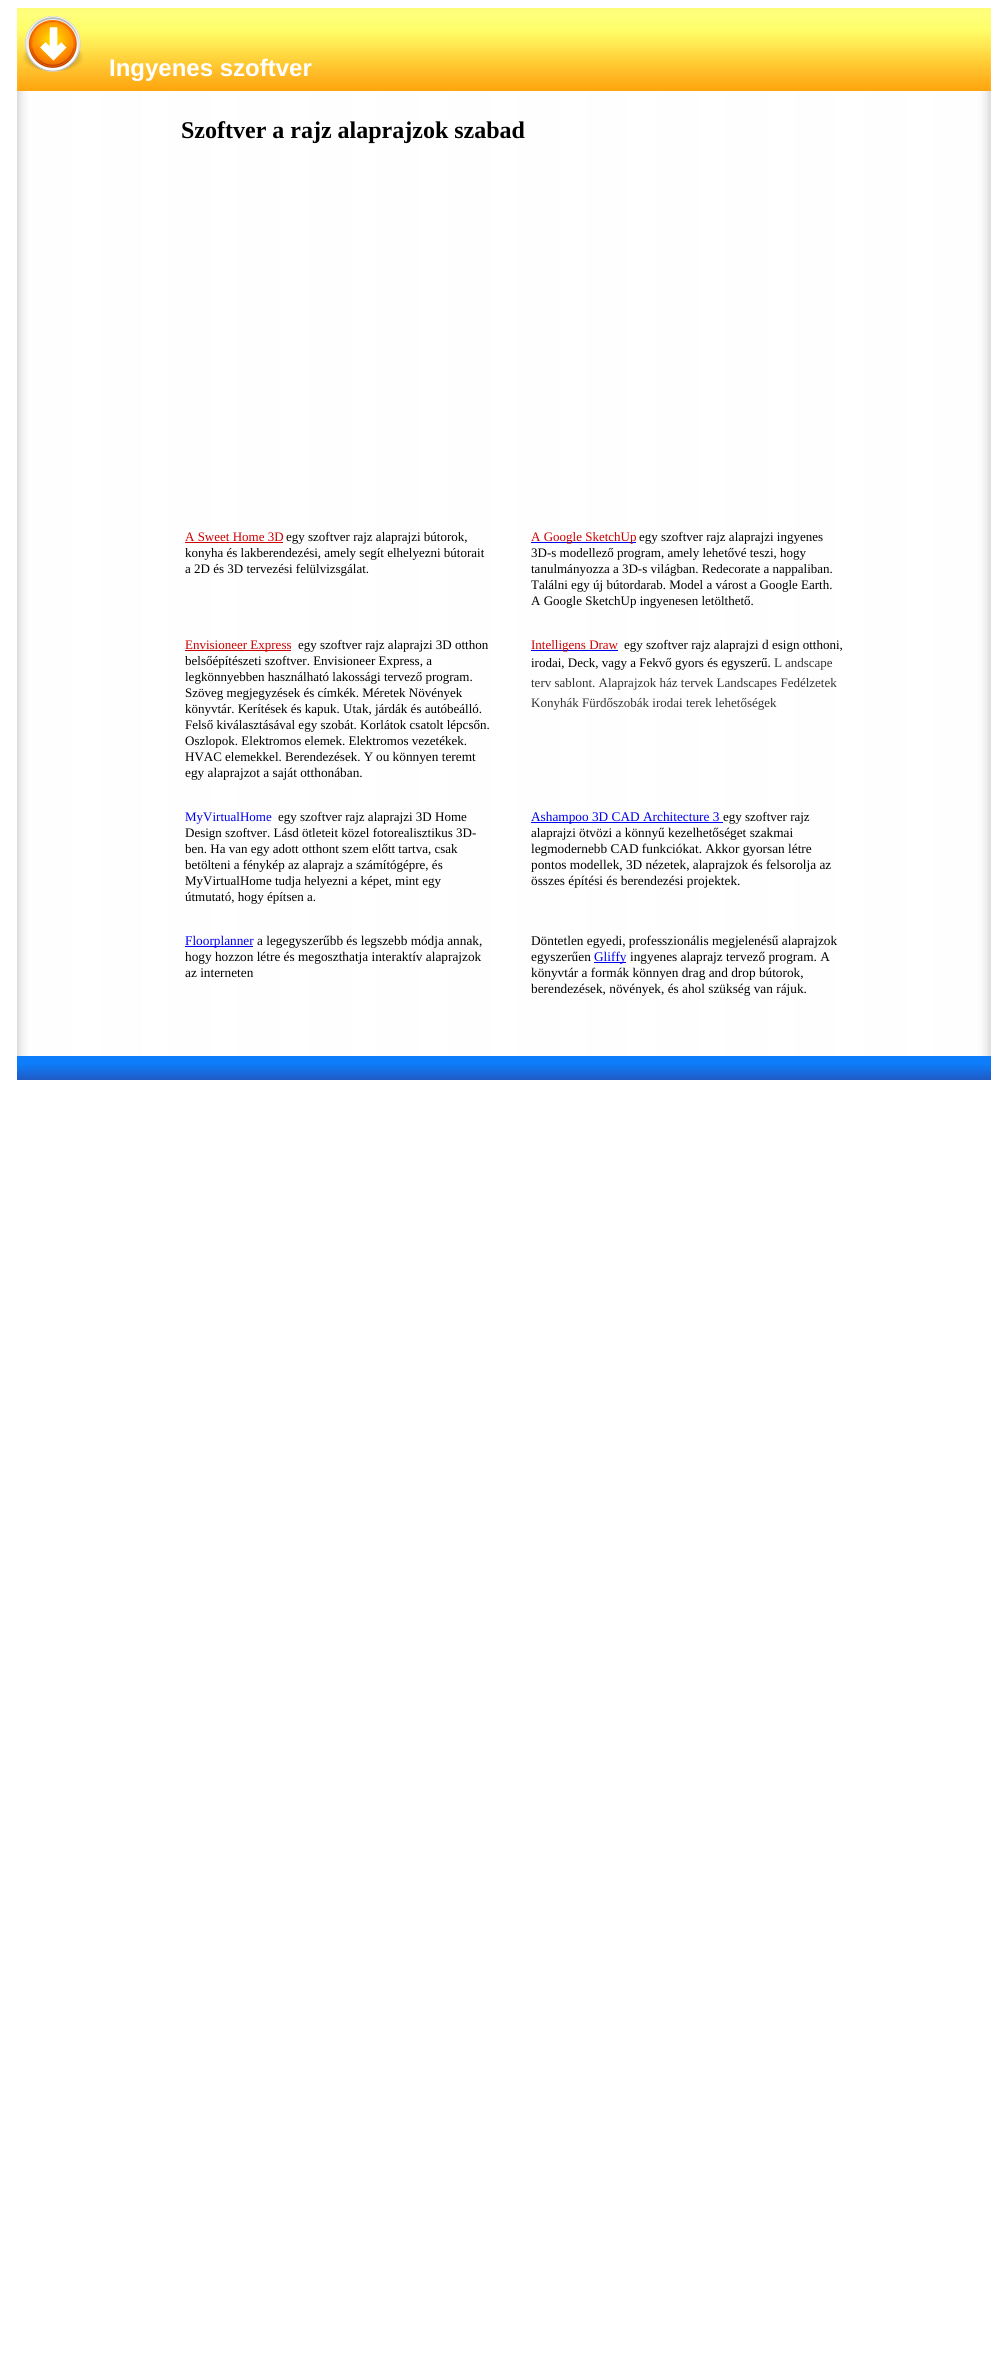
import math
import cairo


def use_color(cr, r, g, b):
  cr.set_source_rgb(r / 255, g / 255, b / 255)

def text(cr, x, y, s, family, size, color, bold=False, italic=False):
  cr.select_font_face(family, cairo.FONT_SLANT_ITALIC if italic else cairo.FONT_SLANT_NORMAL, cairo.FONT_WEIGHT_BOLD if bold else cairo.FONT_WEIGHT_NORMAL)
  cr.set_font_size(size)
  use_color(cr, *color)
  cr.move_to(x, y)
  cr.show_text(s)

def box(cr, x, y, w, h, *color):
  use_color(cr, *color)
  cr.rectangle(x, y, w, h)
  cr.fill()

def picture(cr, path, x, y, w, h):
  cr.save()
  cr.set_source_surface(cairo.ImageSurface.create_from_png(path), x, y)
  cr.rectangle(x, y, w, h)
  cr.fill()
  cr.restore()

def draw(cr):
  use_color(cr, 255, 255, 255)
  cr.paint()
  picture(cr, "img_01.png", 17, 8, 974, 83)
  picture(cr, "img_02.png", 23, 16, 60, 56)
  picture(cr, "img_03.png", 17, 91, 974, 965)
  box(cr, 185, 542, 98, 1, 204, 0, 0)
  box(cr, 531, 542, 105, 1, 0, 0, 238)
  box(cr, 185, 650, 106, 1, 204, 0, 0)
  box(cr, 531, 650, 87, 1, 0, 0, 238)
  box(cr, 531, 822, 192, 1, 0, 0, 238)
  box(cr, 185, 946, 68, 1, 0, 0, 238)
  box(cr, 594, 962, 32, 1, 0, 0, 238)
  picture(cr, "img_04.png", 17, 1056, 974, 24)
  text(cr, 109, 76, "Ingyenes szoftver", "Liberation Sans", 24, (255, 255, 255), bold=True)
  text(cr, 181, 138, "Szoftver a rajz alaprajzok szabad", "Liberation Serif", 24, (0, 0, 0), bold=True)
  text(cr, 185, 541, "A Sweet Home 3D", "Liberation Serif", 13, (204, 0, 0))
  text(cr, 286, 541, "egy szoftver rajz alaprajzi bútorok,", "Liberation Serif", 13, (0, 0, 0))
  text(cr, 185, 557, "konyha és lakberendezési, amely segít elhelyezni bútorait", "Liberation Serif", 13, (0, 0, 0))
  text(cr, 185, 573, "a 2D és 3D tervezési felülvizsgálat.", "Liberation Serif", 13, (0, 0, 0))
  text(cr, 531, 541, "A Google SketchUp", "Liberation Serif", 13, (204, 0, 0))
  text(cr, 639, 541, "egy szoftver rajz alaprajzi ingyenes", "Liberation Serif", 13, (0, 0, 0))
  text(cr, 531, 557, "3D-s modellező program, amely lehetővé teszi, hogy", "Liberation Serif", 13, (0, 0, 0))
  text(cr, 531, 573, "tanulmányozza a 3D-s világban. Redecorate a nappaliban.", "Liberation Serif", 13, (0, 0, 0))
  text(cr, 531, 589, "Találni egy új bútordarab. Model a várost a Google Earth.", "Liberation Serif", 13, (0, 0, 0))
  text(cr, 531, 605, "A Google SketchUp ingyenesen letölthető.", "Liberation Serif", 13, (0, 0, 0))
  text(cr, 185, 649, "Envisioneer Express", "Liberation Serif", 13, (204, 0, 0))
  text(cr, 298, 649, "egy szoftver rajz alaprajzi 3D otthon", "Liberation Serif", 13, (0, 0, 0))
  text(cr, 185, 665, "belsőépítészeti szoftver. Envisioneer Express, a", "Liberation Serif", 13, (0, 0, 0))
  text(cr, 185, 681, "legkönnyebben használható lakossági tervező program.", "Liberation Serif", 13, (0, 0, 0))
  text(cr, 185, 697, "Szöveg megjegyzések és címkék. Méretek Növények", "Liberation Serif", 13, (0, 0, 0))
  text(cr, 185, 713, "könyvtár. Kerítések és kapuk. Utak, járdák és autóbeálló.", "Liberation Serif", 13, (0, 0, 0))
  text(cr, 185, 729, "Felső kiválasztásával egy szobát. Korlátok csatolt lépcsőn.", "Liberation Serif", 13, (0, 0, 0))
  text(cr, 185, 745, "Oszlopok. Elektromos elemek. Elektromos vezetékek.", "Liberation Serif", 13, (0, 0, 0))
  text(cr, 185, 761, "HVAC elemekkel. Berendezések. Y", "Liberation Serif", 13, (0, 0, 0))
  text(cr, 376, 761, "ou könnyen teremt", "Liberation Serif", 13.3, (0, 0, 0))
  text(cr, 185, 777, "egy alaprajzot a saját otthonában.", "Liberation Serif", 13.3, (0, 0, 0))
  text(cr, 531, 649, "Intelligens Draw", "Liberation Serif", 13, (204, 0, 0))
  text(cr, 624, 649, "egy szoftver rajz alaprajzi", "Liberation Serif", 13, (0, 0, 0))
  text(cr, 762, 649, "d", "Liberation Serif", 13.3, (0, 0, 0))
  text(cr, 772, 649, "esign otthoni,", "Liberation Serif", 13, (0, 0, 0))
  text(cr, 531, 667, "irodai, Deck, vagy a Fekvő gyors és egyszerű.", "Liberation Serif", 13, (0, 0, 0))
  text(cr, 774, 667, "L", "Liberation Serif", 13.3, (51, 51, 51))
  text(cr, 785, 667, "andscape", "Liberation Serif", 13, (51, 51, 51))
  text(cr, 531, 687, "terv sablont. Alaprajzok ház tervek Landscapes Fedélzetek", "Liberation Serif", 13, (51, 51, 51))
  text(cr, 531, 707, "Konyhák Fürdőszobák irodai terek lehetőségek", "Liberation Serif", 13, (51, 51, 51))
  text(cr, 185, 821, "MyVirtualHome", "Liberation Serif", 13, (0, 0, 238))
  text(cr, 278, 821, "egy szoftver rajz alaprajzi 3D Home", "Liberation Serif", 13, (0, 0, 0))
  text(cr, 185, 837, "Design szoftver. Lásd ötleteit közel fotorealisztikus 3D-", "Liberation Serif", 13, (0, 0, 0))
  text(cr, 185, 853, "ben. Ha van egy adott otthont szem előtt tartva, csak", "Liberation Serif", 13, (0, 0, 0))
  text(cr, 185, 869, "betölteni a fénykép az alaprajz a számítógépre, és", "Liberation Serif", 13, (0, 0, 0))
  text(cr, 185, 885, "MyVirtualHome tudja helyezni a képet, mint egy", "Liberation Serif", 13, (0, 0, 0))
  text(cr, 185, 901, "útmutató, hogy építsen a.", "Liberation Serif", 13, (0, 0, 0))
  text(cr, 531, 821, "Ashampoo 3D CAD Architecture 3", "Liberation Serif", 13.3, (0, 0, 238))
  text(cr, 723, 821, "egy szoftver rajz", "Liberation Serif", 13, (0, 0, 0))
  text(cr, 531, 837, "alaprajzi", "Liberation Serif", 13, (0, 0, 0))
  text(cr, 579, 837, "ötvözi a könnyű kezelhetőséget szakmai", "Liberation Serif", 13.3, (0, 0, 0))
  text(cr, 531, 853, "legmodernebb CAD funkciókat. Akkor gyorsan létre", "Liberation Serif", 13.3, (0, 0, 0))
  text(cr, 531, 869, "pontos modellek, 3D nézetek, alaprajzok és felsorolja az", "Liberation Serif", 13.3, (0, 0, 0))
  text(cr, 531, 885, "összes építési és berendezési projektek.", "Liberation Serif", 13.3, (0, 0, 0))
  text(cr, 185, 945, "Floorplanner", "Liberation Serif", 13.3, (0, 0, 238))
  text(cr, 257, 945, "a legegyszerűbb és legszebb módja annak,", "Liberation Serif", 13.3, (0, 0, 0))
  text(cr, 185, 961, "hogy hozzon létre és megoszthatja interaktív alaprajzok", "Liberation Serif", 13.3, (0, 0, 0))
  text(cr, 185, 977, "az interneten", "Liberation Serif", 13.3, (0, 0, 0))
  text(cr, 531, 945, "Döntetlen egyedi, professzionális megjelenésű alaprajzok", "Liberation Serif", 13.3, (0, 0, 0))
  text(cr, 531, 961, "egyszerűen", "Liberation Serif", 13.3, (0, 0, 0))
  text(cr, 594, 961, "Gliffy", "Liberation Serif", 13.3, (0, 0, 238))
  text(cr, 630, 961, "ingyenes alaprajz tervező program. A", "Liberation Serif", 13.3, (0, 0, 0))
  text(cr, 531, 977, "könyvtár a formák könnyen drag and drop bútorok,", "Liberation Serif", 13.3, (0, 0, 0))
  text(cr, 531, 993, "berendezések, növények, és ahol szükség van rájuk.", "Liberation Serif", 13.3, (0, 0, 0))


surface = cairo.ImageSurface(cairo.FORMAT_RGB24, 1007, 2364)
cr = cairo.Context(surface)
options = cairo.FontOptions()
options.set_hint_metrics(cairo.HINT_METRICS_OFF)
options.set_hint_style(cairo.HINT_STYLE_NONE)
cr.set_font_options(options)
cr.set_miter_limit(4)
draw(cr)
surface.write_to_png("out.png")
